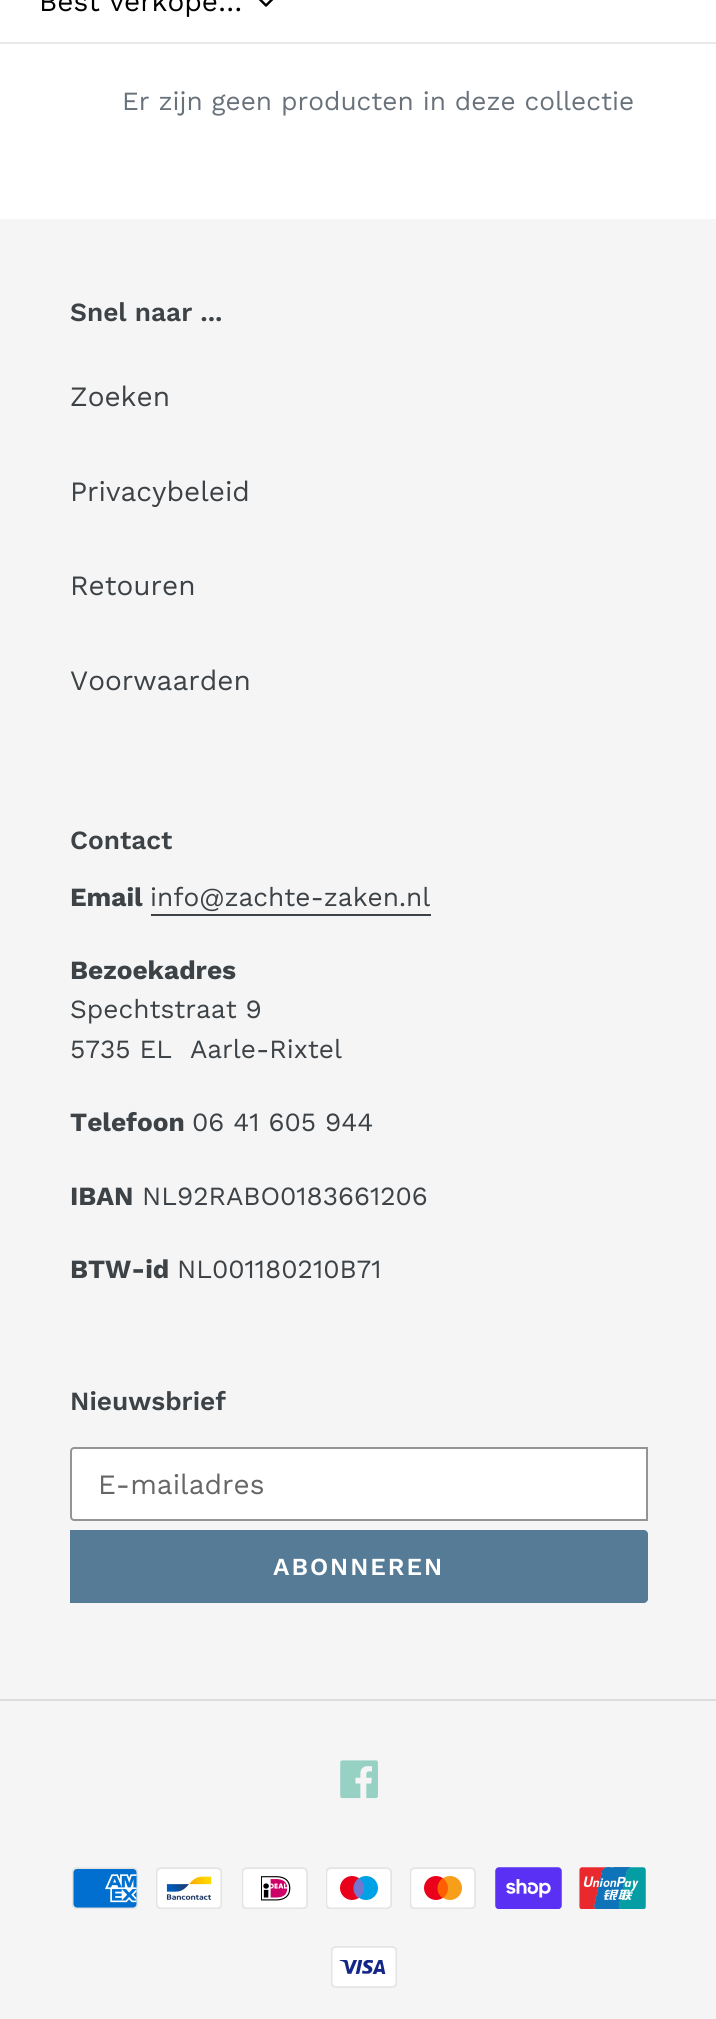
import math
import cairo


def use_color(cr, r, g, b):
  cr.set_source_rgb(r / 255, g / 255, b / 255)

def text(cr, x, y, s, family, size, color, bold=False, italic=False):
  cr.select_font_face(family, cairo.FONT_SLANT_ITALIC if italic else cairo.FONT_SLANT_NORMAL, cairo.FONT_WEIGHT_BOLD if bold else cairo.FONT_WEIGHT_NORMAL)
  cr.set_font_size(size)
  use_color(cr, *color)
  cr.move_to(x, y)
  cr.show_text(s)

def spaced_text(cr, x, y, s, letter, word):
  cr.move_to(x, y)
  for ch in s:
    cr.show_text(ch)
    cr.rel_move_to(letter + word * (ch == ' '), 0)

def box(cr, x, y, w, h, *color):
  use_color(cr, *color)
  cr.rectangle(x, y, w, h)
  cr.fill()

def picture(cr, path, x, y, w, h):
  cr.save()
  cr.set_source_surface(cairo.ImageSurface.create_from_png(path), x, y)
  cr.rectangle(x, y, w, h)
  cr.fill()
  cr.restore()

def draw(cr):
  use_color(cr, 255, 255, 255)
  cr.paint()
  box(cr, 0, 42, 716, 2, 232, 233, 235)
  picture(cr, "img_01.png", 258, 0, 16, 7)
  box(cr, 0, 219, 716, 1800, 245, 245, 245)
  box(cr, 151, 914, 280, 2, 61, 66, 70)
  use_color(cr, 255, 255, 255)
  cr.new_path()
  cr.move_to(74, 1448)
  cr.line_to(647, 1448)
  cr.line_to(647, 1520)
  cr.line_to(74, 1520)
  cr.curve_to(72.5, 1520, 71, 1518.5, 71, 1517)
  cr.line_to(71, 1451)
  cr.curve_to(71, 1449.5, 72.5, 1448, 74, 1448)
  cr.close_path()
  cr.fill_preserve()
  use_color(cr, 148, 148, 148)
  cr.stroke()
  use_color(cr, 85, 123, 151)
  cr.new_path()
  cr.move_to(70, 1530)
  cr.line_to(644, 1530)
  cr.curve_to(646, 1530, 648, 1532, 648, 1534)
  cr.line_to(648, 1599)
  cr.curve_to(648, 1601, 646, 1603, 644, 1603)
  cr.line_to(70, 1603)
  cr.close_path()
  cr.fill()
  box(cr, 0, 1699, 716, 2, 220, 220, 220)
  picture(cr, "img_02.png", 340, 1760, 38, 39)
  picture(cr, "img_03.png", 72, 1867, 66, 42)
  picture(cr, "img_04.png", 156, 1867, 66, 42)
  picture(cr, "img_05.png", 242, 1867, 66, 42)
  picture(cr, "img_06.png", 326, 1867, 66, 42)
  picture(cr, "img_07.png", 410, 1867, 66, 42)
  picture(cr, "img_08.png", 495, 1867, 67, 42)
  picture(cr, "img_09.png", 579, 1867, 67, 42)
  picture(cr, "img_10.png", 331, 1946, 66, 42)
  text(cr, 39, 11, "Best verkope…", "Work Sans", 28, (0, 0, 0))
  text(cr, 122, 110, "Er zijn geen producten in deze collectie", "Work Sans", 26.25, (105, 114, 123))
  text(cr, 70, 321, "Snel naar ...", "Work Sans SemiBold", 26.25, (61, 66, 70))
  text(cr, 70, 406, "Zoeken", "Work Sans", 28, (61, 66, 70))
  text(cr, 70, 501, "Privacybeleid", "Work Sans", 28, (61, 66, 70))
  text(cr, 70, 595, "Retouren", "Work Sans", 28, (61, 66, 70))
  text(cr, 70, 690, "Voorwaarden", "Work Sans", 28, (61, 66, 70))
  text(cr, 70, 849, "Contact", "Work Sans SemiBold", 26.25, (61, 66, 70))
  text(cr, 70, 906, "Email", "Work Sans", 26.25, (61, 66, 70), bold=True)
  text(cr, 150, 906, "info@zachte-zaken.nl", "Work Sans", 26.25, (61, 66, 70))
  text(cr, 70, 979, "Bezoekadres", "Work Sans", 26.25, (61, 66, 70), bold=True)
  text(cr, 70, 1018, "Spechtstraat 9", "Work Sans", 26.25, (61, 66, 70))
  text(cr, 70, 1058, "5735 EL  Aarle-Rixtel", "Work Sans", 26.25, (61, 66, 70))
  text(cr, 70, 1131, "Telefoon", "Work Sans", 26.25, (61, 66, 70), bold=True)
  text(cr, 192, 1131, "06 41 605 944", "Work Sans", 26.25, (61, 66, 70))
  text(cr, 70, 1205, "IBAN", "Work Sans", 26.25, (61, 66, 70), bold=True)
  text(cr, 142, 1205, "NL92RABO0183661206", "Work Sans", 26.25, (61, 66, 70))
  text(cr, 70, 1278, "BTW-id", "Work Sans", 26.25, (61, 66, 70), bold=True)
  text(cr, 177, 1278, "NL001180210B71", "Work Sans", 26.25, (61, 66, 70))
  text(cr, 70, 1410, "Nieuwsbrief", "Work Sans SemiBold", 26.25, (61, 66, 70))
  text(cr, 98, 1494, "E-mailadres", "Work Sans", 28, (102, 102, 102))
  cr.select_font_face("Work Sans SemiBold")
  cr.set_font_size(24.5)
  use_color(cr, 255, 255, 255)
  spaced_text(cr, 273, 1575, "ABONNEREN", 2, 0)


surface = cairo.ImageSurface(cairo.FORMAT_RGB24, 716, 2019)
cr = cairo.Context(surface)
options = cairo.FontOptions()
options.set_hint_metrics(cairo.HINT_METRICS_OFF)
options.set_hint_style(cairo.HINT_STYLE_NONE)
cr.set_font_options(options)
cr.set_miter_limit(4)
draw(cr)
surface.write_to_png("out.png")
